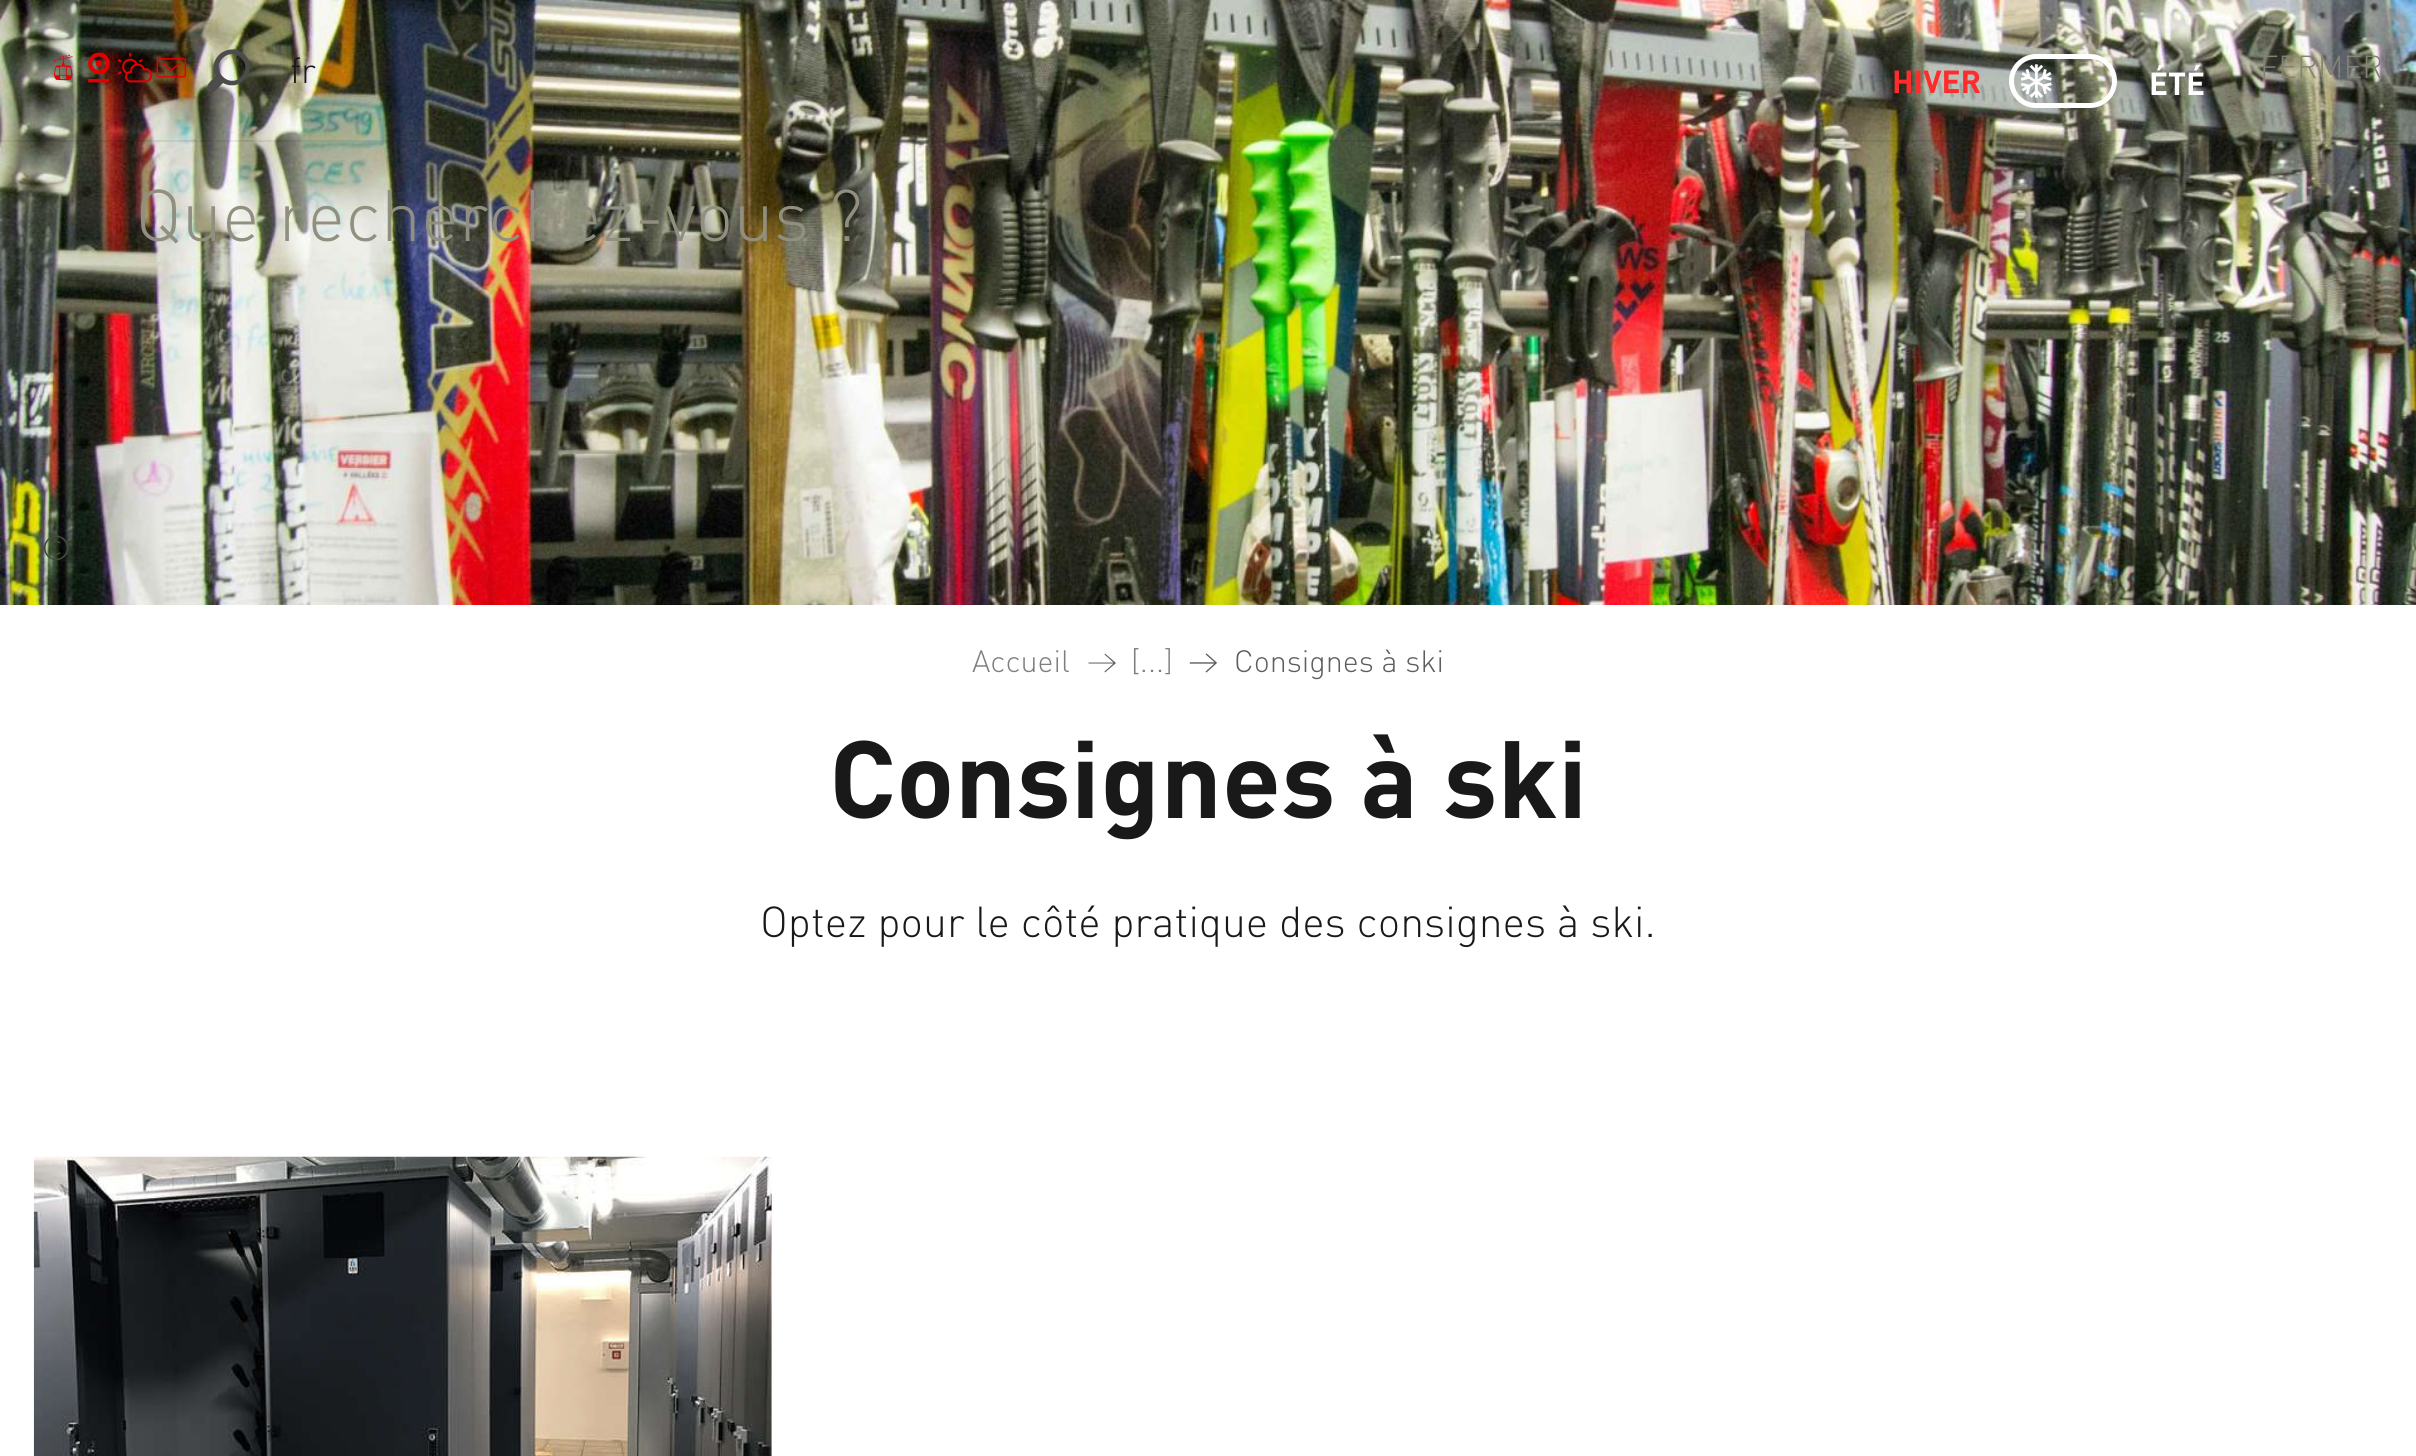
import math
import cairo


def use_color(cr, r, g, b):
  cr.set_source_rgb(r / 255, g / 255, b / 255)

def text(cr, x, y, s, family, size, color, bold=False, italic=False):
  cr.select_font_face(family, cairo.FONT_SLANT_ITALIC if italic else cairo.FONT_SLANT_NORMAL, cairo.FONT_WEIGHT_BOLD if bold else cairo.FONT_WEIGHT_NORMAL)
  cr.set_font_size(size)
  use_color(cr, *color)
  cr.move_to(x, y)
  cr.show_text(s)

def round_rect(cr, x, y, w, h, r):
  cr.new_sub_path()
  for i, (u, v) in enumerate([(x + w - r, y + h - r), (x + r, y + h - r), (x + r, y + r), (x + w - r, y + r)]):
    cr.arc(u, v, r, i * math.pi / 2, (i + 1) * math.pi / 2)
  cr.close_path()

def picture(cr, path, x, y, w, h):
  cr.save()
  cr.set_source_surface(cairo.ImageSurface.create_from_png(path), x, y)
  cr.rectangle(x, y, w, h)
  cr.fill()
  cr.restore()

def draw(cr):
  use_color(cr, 255, 255, 255)
  cr.paint()
  picture(cr, "img_06.png", 0, 0, 2416, 605)
  cr.set_source_rgba(0, 0, 0, 0.07)
  cr.rectangle(0, 140, 2416, 2)
  cr.fill()
  picture(cr, "img_01.png", 53, 54, 20, 27)
  picture(cr, "img_02.png", 88, 52, 22, 31)
  picture(cr, "img_03.png", 117, 52, 36, 31)
  picture(cr, "img_04.png", 156, 58, 31, 20)
  use_color(cr, 76, 76, 76)
  cr.new_path()
  cr.move_to(245, 55)
  cr.curve_to(230, 40, 206, 58, 216, 76)
  cr.curve_to(214, 78, 201, 88, 210, 92)
  cr.curve_to(211, 92, 213, 92, 214, 92)
  cr.line_to(223, 83)
  cr.curve_to(241, 93, 259, 69, 245, 55)
  cr.close_path()
  cr.move_to(241, 77)
  cr.curve_to(229, 89, 210, 70, 223, 58)
  cr.curve_to(235, 46, 254, 64, 241, 77)
  cr.close_path()
  cr.fill()
  round_rect(cr, 2011.5, 56.5, 103, 49, 24.5)
  use_color(cr, 254, 254, 254)
  cr.set_line_width(5)
  cr.stroke()
  picture(cr, "img_05.png", 2020, 64, 32, 34)
  use_color(cr, 94, 94, 94)
  cr.new_path()
  cr.move_to(1088.5, 663.5)
  cr.line_to(1088.5, 662.5)
  cr.line_to(1114.5, 662.5)
  cr.line_to(1114.5, 663.5)
  cr.close_path()
  cr.move_to(1104.5, 654.5)
  cr.line_to(1105, 653.5)
  cr.line_to(1116, 663)
  cr.line_to(1105, 672.5)
  cr.line_to(1104.5, 671.5)
  cr.line_to(1114, 663)
  cr.close_path()
  cr.fill()
  picture(cr, "img_07.png", 1189, 653, 28, 20)
  picture(cr, "img_08.png", 33, 1156, 739, 300)
  text(cr, 2260, 78, "FERMER", "DIN Light", 31.5, (131, 131, 116))
  text(cr, 135, 241, "Que recherchez-vous ?", "DIN Light", 72, (145, 143, 128))
  text(cr, 290, 83, "fr", "DIN Light", 36, (25, 25, 25))
  text(cr, 1892, 93, "HIVER", "DIN", 31.5, (255, 44, 44), bold=True)
  text(cr, 2149, 95, "ÉTÉ", "DIN", 31.5, (254, 254, 254), bold=True)
  text(cr, 41, 560, "©", "DIN Light", 34, (65, 76, 60))
  text(cr, 972, 672, "Accueil", "DIN Light", 30.5, (126, 126, 126))
  text(cr, 1131, 672, "[...]", "DIN Light", 30.5, (126, 126, 126))
  text(cr, 1234, 672, "Consignes à ski", "DIN Light", 30.5, (94, 94, 94))
  text(cr, 829, 818, "Consignes à ski", "DIN", 108, (25, 25, 25), bold=True)
  text(cr, 760, 937, "Optez pour le côté pratique des consignes à ski.", "DIN Light", 42.75, (25, 25, 25))


surface = cairo.ImageSurface(cairo.FORMAT_RGB24, 2416, 1456)
cr = cairo.Context(surface)
options = cairo.FontOptions()
options.set_hint_metrics(cairo.HINT_METRICS_OFF)
options.set_hint_style(cairo.HINT_STYLE_NONE)
cr.set_font_options(options)
cr.set_miter_limit(4)
draw(cr)
surface.write_to_png("out.png")
